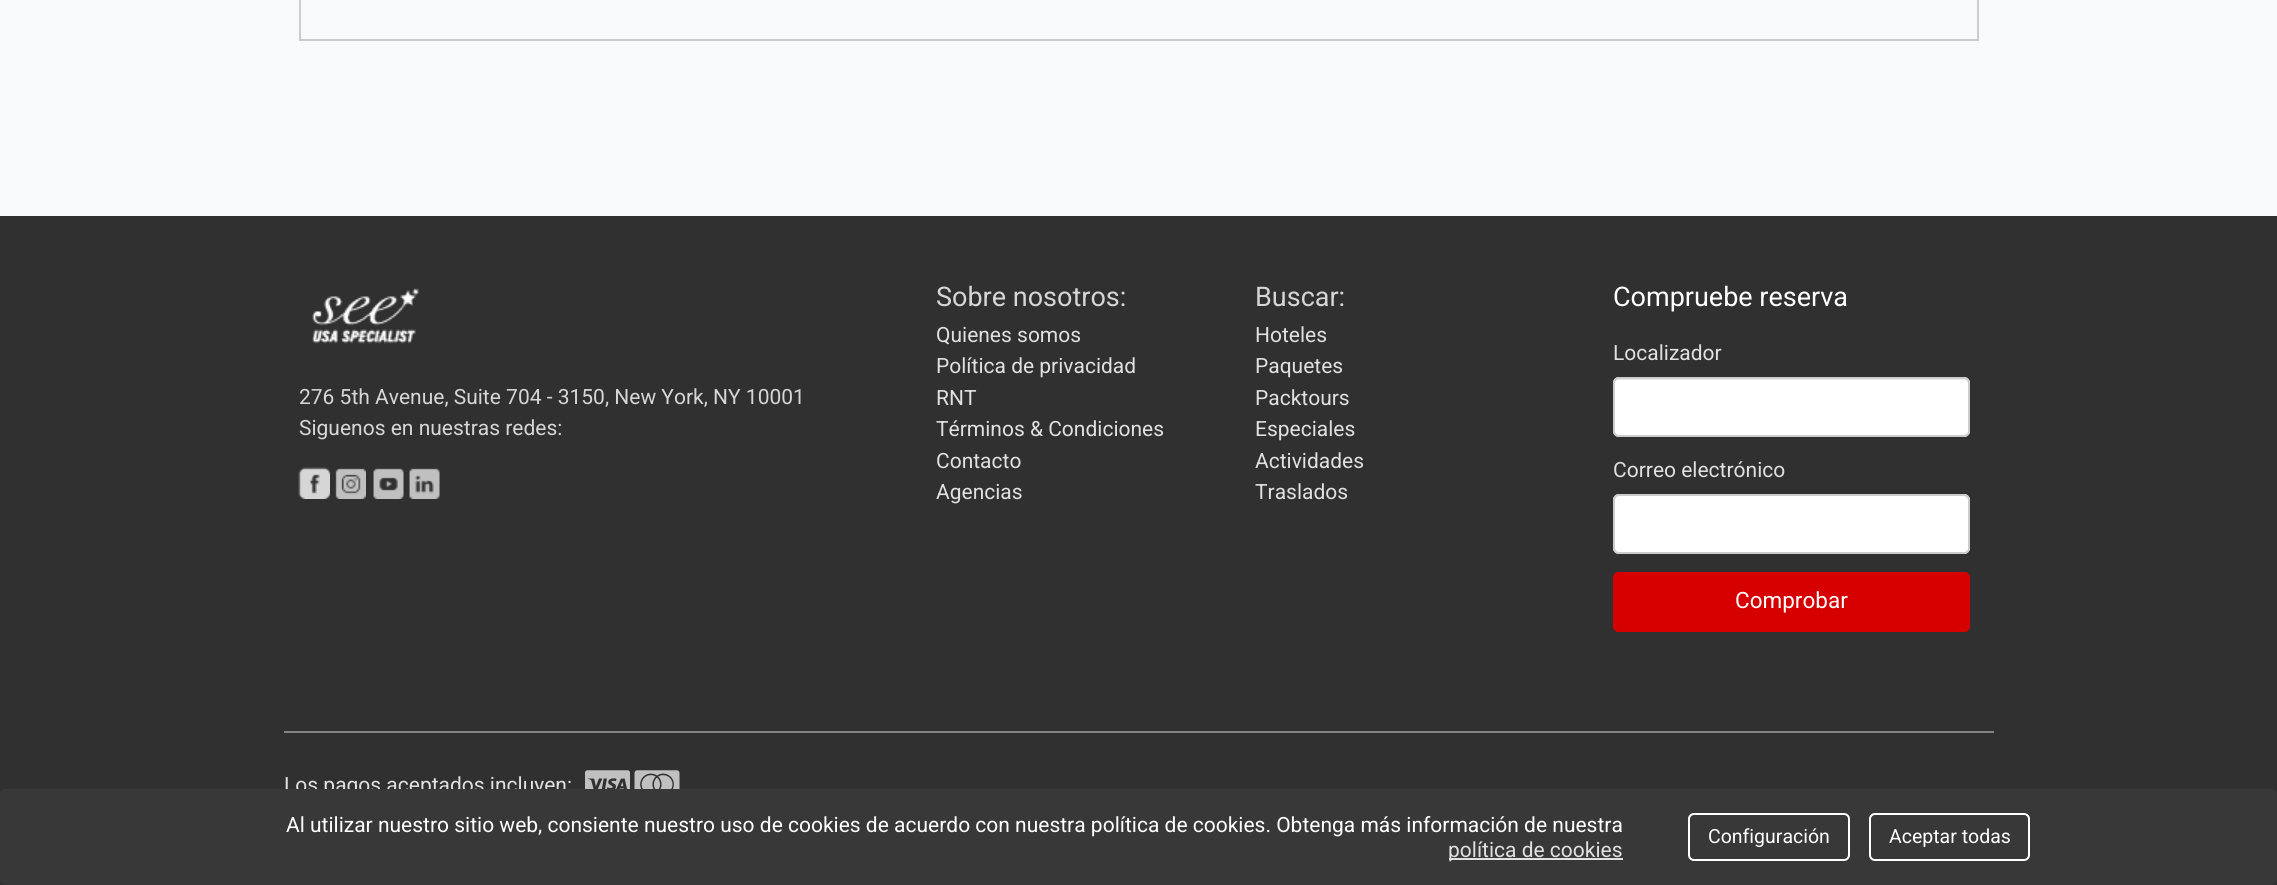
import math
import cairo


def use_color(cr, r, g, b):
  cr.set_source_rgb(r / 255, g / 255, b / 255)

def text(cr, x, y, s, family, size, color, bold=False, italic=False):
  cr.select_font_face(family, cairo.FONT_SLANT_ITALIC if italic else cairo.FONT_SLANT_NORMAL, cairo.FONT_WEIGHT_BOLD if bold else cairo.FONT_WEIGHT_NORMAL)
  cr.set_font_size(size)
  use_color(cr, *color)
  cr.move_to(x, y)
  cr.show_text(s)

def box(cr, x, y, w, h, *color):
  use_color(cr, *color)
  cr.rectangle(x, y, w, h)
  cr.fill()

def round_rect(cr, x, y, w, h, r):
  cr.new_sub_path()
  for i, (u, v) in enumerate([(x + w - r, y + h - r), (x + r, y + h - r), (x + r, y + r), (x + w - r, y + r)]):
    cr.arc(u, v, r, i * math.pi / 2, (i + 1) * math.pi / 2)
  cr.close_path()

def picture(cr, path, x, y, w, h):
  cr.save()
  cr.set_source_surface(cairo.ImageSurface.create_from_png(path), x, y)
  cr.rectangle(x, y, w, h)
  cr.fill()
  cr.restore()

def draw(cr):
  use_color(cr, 248, 249, 250)
  cr.paint()
  cr.rectangle(300, -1, 1678, 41)
  use_color(cr, 204, 204, 204)
  cr.stroke()
  box(cr, 0, 216, 2277, 669, 48, 48, 48)
  picture(cr, "img_01.png", 312, 288, 107, 56)
  picture(cr, "img_02.png", 298, 467, 32, 32)
  picture(cr, "img_03.png", 335, 468, 31, 31)
  picture(cr, "img_04.png", 373, 468, 31, 31)
  picture(cr, "img_05.png", 409, 468, 31, 31)
  use_color(cr, 255, 255, 255)
  round_rect(cr, 1613, 377, 357, 60, 6)
  cr.fill()
  use_color(cr, 236, 236, 236)
  cr.new_path()
  cr.move_to(1618, 380)
  cr.line_to(1964, 380)
  cr.curve_to(1966, 380, 1968, 382, 1968, 384)
  cr.line_to(1968, 383)
  cr.curve_to(1968, 380, 1966, 378, 1963, 378)
  cr.line_to(1619, 378)
  cr.curve_to(1616, 378, 1614, 380, 1614, 383)
  cr.line_to(1614, 384)
  cr.curve_to(1614, 382, 1616, 380, 1618, 380)
  cr.close_path()
  cr.fill()
  round_rect(cr, 1614, 378, 355, 58, 5)
  use_color(cr, 204, 204, 204)
  cr.stroke()
  use_color(cr, 255, 255, 255)
  round_rect(cr, 1613, 494, 357, 60, 6)
  cr.fill()
  use_color(cr, 236, 236, 236)
  cr.new_path()
  cr.move_to(1618, 496)
  cr.line_to(1964, 496)
  cr.curve_to(1966, 496, 1968, 499, 1968, 501)
  cr.line_to(1968, 500)
  cr.curve_to(1968, 497, 1966, 495, 1963, 495)
  cr.line_to(1619, 495)
  cr.curve_to(1616, 495, 1614, 497, 1614, 500)
  cr.line_to(1614, 501)
  cr.curve_to(1614, 499, 1616, 496, 1618, 496)
  cr.close_path()
  cr.fill()
  round_rect(cr, 1614, 495, 355, 58, 5)
  use_color(cr, 204, 204, 204)
  cr.stroke()
  use_color(cr, 214, 0, 0)
  round_rect(cr, 1613, 572, 357, 60, 6)
  cr.fill()
  use_color(cr, 198, 0, 0)
  cr.new_path()
  cr.move_to(1618, 574)
  cr.line_to(1964, 574)
  cr.curve_to(1966, 574, 1968, 577, 1968, 579)
  cr.line_to(1968, 578)
  cr.curve_to(1968, 575, 1966, 573, 1963, 573)
  cr.line_to(1619, 573)
  cr.curve_to(1616, 573, 1614, 575, 1614, 578)
  cr.line_to(1614, 579)
  cr.curve_to(1614, 577, 1616, 574, 1618, 574)
  cr.close_path()
  cr.fill()
  round_rect(cr, 1614, 573, 355, 58, 5)
  use_color(cr, 214, 0, 0)
  cr.stroke()
  box(cr, 284, 731, 1710, 2, 131, 131, 131)
  picture(cr, "img_06.png", 585, 770, 45, 19)
  picture(cr, "img_07.png", 634, 770, 46, 19)
  text(cr, 299, 404, "276 5th Avenue, Suite 704 - 3150, New York, NY 10001", "Roboto", 21, (214, 214, 214))
  text(cr, 299, 435, "Siguenos en nuestras redes:", "Roboto", 21, (214, 214, 214))
  text(cr, 936, 306, "Sobre nosotros:", "Roboto", 27, (214, 214, 214))
  text(cr, 936, 342, "Quienes somos", "Roboto", 21, (224, 224, 224))
  text(cr, 936, 373, "Política de privacidad", "Roboto", 21, (224, 224, 224))
  text(cr, 936, 405, "RNT", "Roboto", 21, (224, 224, 224))
  text(cr, 936, 436, "Términos & Condiciones", "Roboto", 21, (224, 224, 224))
  text(cr, 936, 468, "Contacto", "Roboto", 21, (224, 224, 224))
  text(cr, 936, 499, "Agencias", "Roboto", 21, (224, 224, 224))
  text(cr, 1255, 306, "Buscar:", "Roboto", 27, (214, 214, 214))
  text(cr, 1255, 342, "Hoteles", "Roboto", 21, (224, 224, 224))
  text(cr, 1255, 373, "Paquetes", "Roboto", 21, (224, 224, 224))
  text(cr, 1255, 405, "Packtours", "Roboto", 21, (224, 224, 224))
  text(cr, 1255, 436, "Especiales", "Roboto", 21, (224, 224, 224))
  text(cr, 1255, 468, "Actividades", "Roboto", 21, (224, 224, 224))
  text(cr, 1255, 499, "Traslados", "Roboto", 21, (224, 224, 224))
  text(cr, 1613, 306, "Compruebe reserva", "Roboto", 27, (255, 255, 255))
  text(cr, 1613, 360, "Localizador", "Roboto", 21, (224, 224, 224))
  text(cr, 1613, 477, "Correo electrónico", "Roboto", 21, (224, 224, 224))
  text(cr, 1735, 608, "Comprobar", "Roboto", 22.5, (255, 255, 255))
  text(cr, 284, 792, "Los pagos aceptados incluyen:", "Roboto", 21, (224, 224, 224))
  use_color(cr, 56, 56, 56)
  round_rect(cr, 0, 789, 2277, 96, 6)
  cr.fill()
  text(cr, 286, 832, "Al utilizar nuestro sitio web, consiente nuestro uso de cookies de acuerdo con nuestra política de cookies. Obtenga más información de nuestra", "Roboto", 21, (255, 255, 255))
  box(cr, 1449, 858, 174, 2, 225, 225, 225)
  text(cr, 1448, 857, "política de cookies", "Roboto", 21, (224, 224, 224))
  round_rect(cr, 1689, 814, 160, 46, 5)
  use_color(cr, 255, 255, 255)
  cr.stroke()
  text(cr, 1708, 843, "Configuración", "Roboto", 19.5, (255, 255, 255))
  round_rect(cr, 1870, 814, 159, 46, 5)
  cr.stroke()
  text(cr, 1889, 843, "Aceptar todas", "Roboto", 19.5, (255, 255, 255))


surface = cairo.ImageSurface(cairo.FORMAT_RGB24, 2277, 885)
cr = cairo.Context(surface)
options = cairo.FontOptions()
options.set_hint_metrics(cairo.HINT_METRICS_OFF)
options.set_hint_style(cairo.HINT_STYLE_NONE)
cr.set_font_options(options)
cr.set_miter_limit(4)
draw(cr)
surface.write_to_png("out.png")
